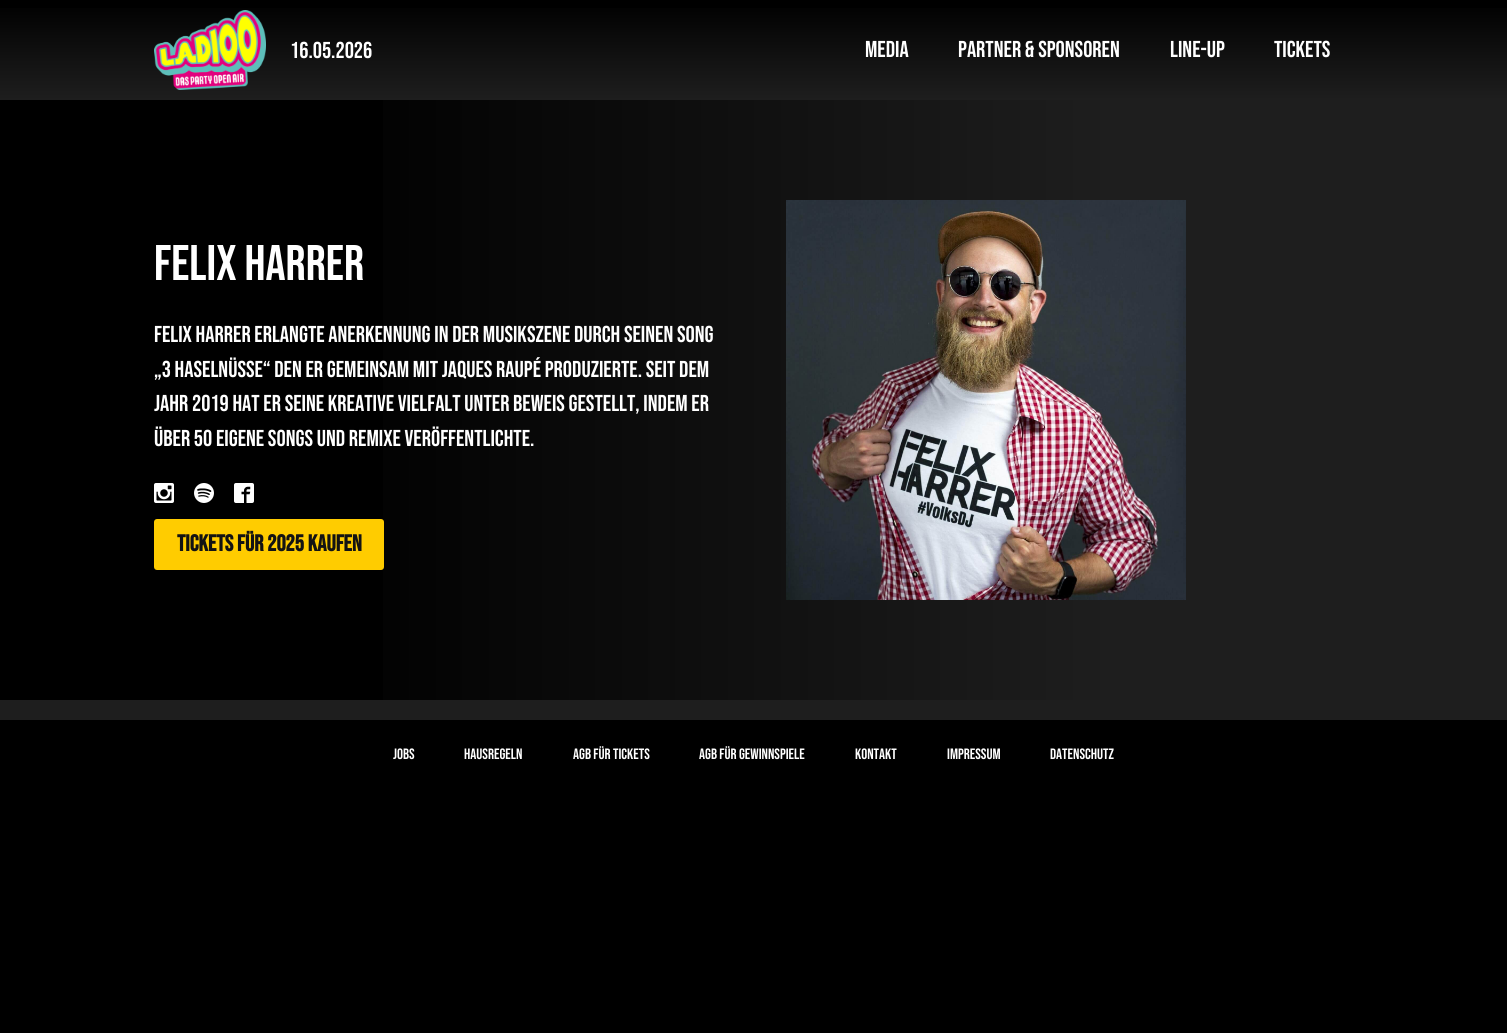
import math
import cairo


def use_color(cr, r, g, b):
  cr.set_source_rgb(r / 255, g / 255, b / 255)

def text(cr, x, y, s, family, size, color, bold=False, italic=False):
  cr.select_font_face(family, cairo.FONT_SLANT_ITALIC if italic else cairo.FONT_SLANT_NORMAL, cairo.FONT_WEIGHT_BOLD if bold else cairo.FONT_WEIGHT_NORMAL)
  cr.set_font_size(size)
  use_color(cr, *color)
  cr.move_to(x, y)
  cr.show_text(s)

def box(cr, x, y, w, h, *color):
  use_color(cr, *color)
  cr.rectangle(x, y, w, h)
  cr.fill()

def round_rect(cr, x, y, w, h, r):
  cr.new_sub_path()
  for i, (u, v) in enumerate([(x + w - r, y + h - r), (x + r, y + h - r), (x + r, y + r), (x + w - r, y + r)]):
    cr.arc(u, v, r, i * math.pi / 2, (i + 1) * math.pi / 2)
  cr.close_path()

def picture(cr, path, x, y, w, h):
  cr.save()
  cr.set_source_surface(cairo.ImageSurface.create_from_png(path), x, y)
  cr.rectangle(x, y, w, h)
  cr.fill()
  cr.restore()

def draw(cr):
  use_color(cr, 0, 0, 0)
  cr.paint()
  box(cr, 0, 700, 1507, 20, 30, 30, 30)
  gradient = cairo.LinearGradient(754, 0, 754, 100)
  gradient.add_color_stop_rgba(0, 0, 0, 0, 1)
  gradient.add_color_stop_rgba(1, 0.118, 0.118, 0.118, 1)
  cr.set_source(gradient)
  cr.rectangle(0, 8, 1507, 92)
  cr.fill()
  picture(cr, "img_01.png", 154, 10, 112, 80)
  gradient = cairo.LinearGradient(1507, 400, 0, 400)
  gradient.add_color_stop_rgba(0.26, 0.118, 0.118, 0.118, 1)
  gradient.add_color_stop_rgba(0.79, 0, 0, 0, 1)
  cr.set_source(gradient)
  cr.rectangle(383, 100, 1124, 600)
  cr.fill()
  picture(cr, "img_02.png", 154, 483, 20, 20)
  picture(cr, "img_03.png", 194, 483, 20, 20)
  picture(cr, "img_04.png", 234, 483, 20, 20)
  use_color(cr, 255, 204, 0)
  round_rect(cr, 154, 519, 230, 51, 3)
  cr.fill()
  picture(cr, "img_05.png", 786, 200, 400, 400)
  text(cr, 290, 58, "16.05.2026", "Bebas Neue", 23, (255, 255, 255))
  text(cr, 865, 57, "MEDIA", "Bebas Neue", 23, (255, 255, 255))
  text(cr, 958, 57, "PARTNER & SPONSOREN", "Bebas Neue", 23, (255, 255, 255))
  text(cr, 1170, 57, "LINE-UP", "Bebas Neue", 23, (255, 255, 255))
  text(cr, 1274, 57, "TICKETS", "Bebas Neue", 23, (255, 255, 255))
  text(cr, 154, 280, "Felix Harrer", "Bebas Neue", 50, (255, 255, 255))
  text(cr, 154, 342, "Felix Harrer erlangte Anerkennung in der Musikszene durch seinen Song", "Bebas Neue", 23, (255, 255, 255))
  text(cr, 154, 377, "„3 Haselnüsse“ den er gemeinsam mit Jaques Raupé produzierte. Seit dem", "Bebas Neue", 23, (255, 255, 255))
  text(cr, 154, 411, "Jahr 2019 hat er seine kreative Vielfalt unter Beweis gestellt, indem er", "Bebas Neue", 23, (255, 255, 255))
  text(cr, 154, 446, "über 50 eigene Songs und Remixe veröffentlichte.", "Bebas Neue", 23, (255, 255, 255))
  text(cr, 177, 551, "TICKETS FÜR 2025 KAUFEN", "Bebas Neue", 23, (19, 19, 19), bold=True)
  text(cr, 393, 759, "Jobs", "Bebas Neue", 15, (255, 255, 255))
  text(cr, 464, 759, "Hausregeln", "Bebas Neue", 15, (255, 255, 255))
  text(cr, 573, 759, "AGB für Tickets", "Bebas Neue", 15, (255, 255, 255))
  text(cr, 699, 759, "AGB für Gewinnspiele", "Bebas Neue", 15, (255, 255, 255))
  text(cr, 855, 759, "Kontakt", "Bebas Neue", 15, (255, 255, 255))
  text(cr, 947, 759, "Impressum", "Bebas Neue", 15, (255, 255, 255))
  text(cr, 1050, 759, "Datenschutz", "Bebas Neue", 15, (255, 255, 255))


surface = cairo.ImageSurface(cairo.FORMAT_RGB24, 1507, 1033)
cr = cairo.Context(surface)
options = cairo.FontOptions()
options.set_hint_metrics(cairo.HINT_METRICS_OFF)
options.set_hint_style(cairo.HINT_STYLE_NONE)
cr.set_font_options(options)
cr.set_miter_limit(4)
draw(cr)
surface.write_to_png("out.png")
